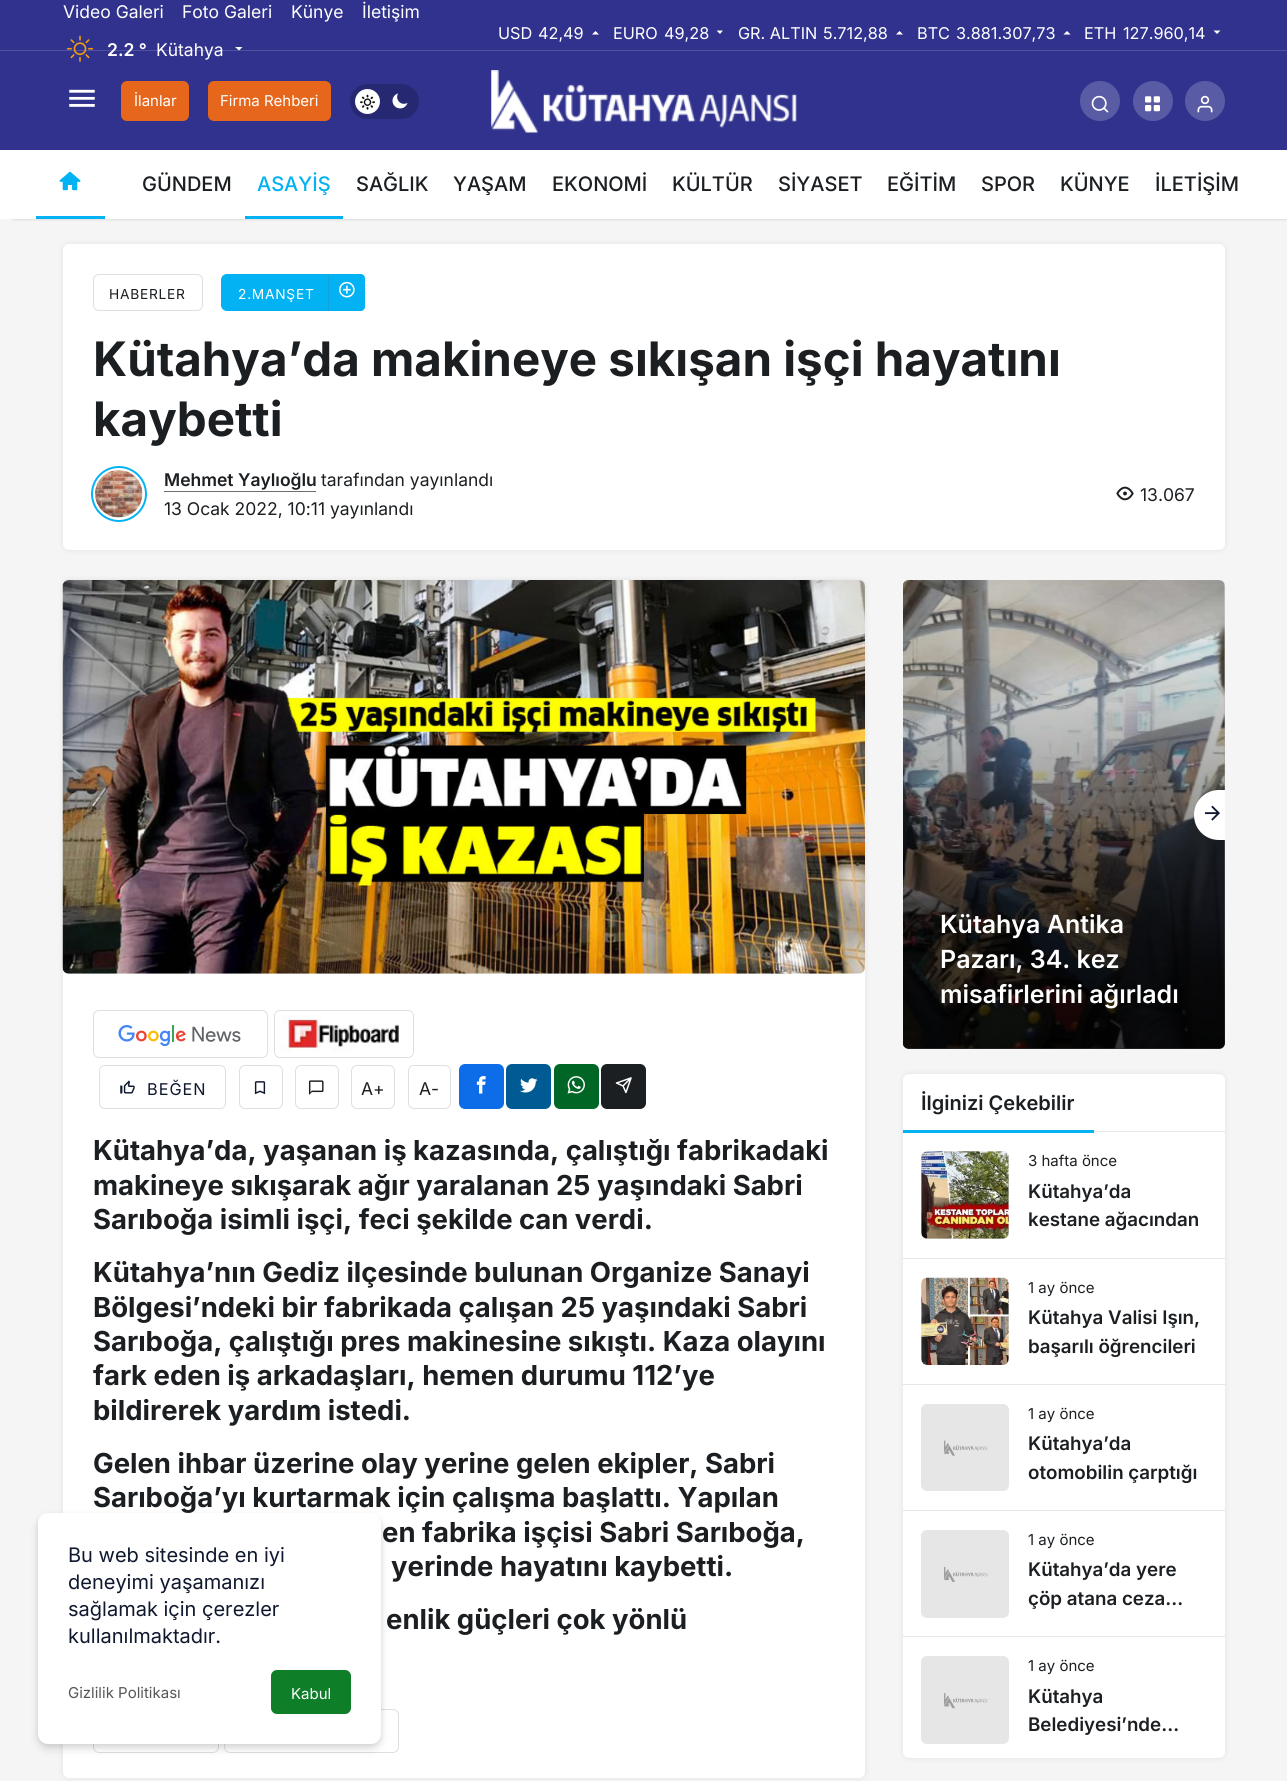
import math
import cairo


def use_color(cr, r, g, b):
  cr.set_source_rgb(r / 255, g / 255, b / 255)

def text(cr, x, y, s, family, size, color, bold=False, italic=False):
  cr.select_font_face(family, cairo.FONT_SLANT_ITALIC if italic else cairo.FONT_SLANT_NORMAL, cairo.FONT_WEIGHT_BOLD if bold else cairo.FONT_WEIGHT_NORMAL)
  cr.set_font_size(size)
  use_color(cr, *color)
  cr.move_to(x, y)
  cr.show_text(s)

def spaced_text(cr, x, y, s, letter, word):
  cr.move_to(x, y)
  for ch in s:
    cr.show_text(ch)
    cr.rel_move_to(letter + word * (ch == ' '), 0)

def box(cr, x, y, w, h, *color):
  use_color(cr, *color)
  cr.rectangle(x, y, w, h)
  cr.fill()

def round_rect(cr, x, y, w, h, r):
  cr.new_sub_path()
  for i, (u, v) in enumerate([(x + w - r, y + h - r), (x + r, y + h - r), (x + r, y + r), (x + w - r, y + r)]):
    cr.arc(u, v, r, i * math.pi / 2, (i + 1) * math.pi / 2)
  cr.close_path()

def shadow(cr, x, y, w, h, r, blur, alpha):
  cr.push_group_with_content(cairo.CONTENT_ALPHA)
  cr.set_operator(cairo.OPERATOR_SOURCE)
  for i in range(15, -16, -2):
    e = blur * i / 6
    if min(w, h) + 2 * e > 0:
      cr.set_source_rgba(0, 0, 0, alpha * math.erfc((i - 1) / 8.5) / 2)
      round_rect(cr, x - e, y - e, w + 2 * e, h + 2 * e, max(0, min(r + e + blur * .6, min(w, h) / 2 + e)))
      cr.fill()
  cr.mask(cr.pop_group())

def picture(cr, path, x, y, w, h):
  cr.save()
  cr.set_source_surface(cairo.ImageSurface.create_from_png(path), x, y)
  cr.rectangle(x, y, w, h)
  cr.fill()
  cr.restore()

def draw(cr):
  use_color(cr, 245, 245, 245)
  cr.paint()
  use_color(cr, 0, 0, 0)
  shadow(cr, 13, 151, 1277, 69, 0, 1, 0.1)
  box(cr, 0, 0, 1287, 150, 48, 50, 142)
  box(cr, 0, 50, 1287, 1, 79, 81, 159)
  picture(cr, "img_01.png", 66, 35, 28, 27)
  use_color(cr, 255, 255, 255)
  cr.new_path()
  cr.move_to(242.5, 47)
  cr.line_to(239, 50.5)
  cr.line_to(235, 47)
  cr.close_path()
  cr.fill()
  cr.new_path()
  cr.move_to(592, 34.5)
  cr.line_to(595.5, 31)
  cr.line_to(599, 34.5)
  cr.close_path()
  cr.fill()
  cr.new_path()
  cr.move_to(723, 30.5)
  cr.line_to(720, 34)
  cr.line_to(716.5, 30.5)
  cr.close_path()
  cr.fill()
  cr.new_path()
  cr.move_to(896, 34.5)
  cr.line_to(899.5, 31)
  cr.line_to(903, 34.5)
  cr.close_path()
  cr.fill()
  cr.new_path()
  cr.move_to(1063.5, 34.5)
  cr.line_to(1067, 31)
  cr.line_to(1070.5, 34.5)
  cr.close_path()
  cr.fill()
  cr.new_path()
  cr.move_to(1220.5, 30.5)
  cr.line_to(1217, 34)
  cr.line_to(1213.5, 30.5)
  cr.close_path()
  cr.fill()
  picture(cr, "img_02.png", 69, 89, 26, 18)
  use_color(cr, 230, 102, 28)
  round_rect(cr, 121, 81, 68, 40, 6)
  cr.fill()
  round_rect(cr, 208, 81, 123, 40, 6)
  cr.fill()
  use_color(cr, 38, 40, 114)
  round_rect(cr, 350, 84, 69, 35, 17.5)
  cr.fill()
  use_color(cr, 255, 255, 255)
  cr.arc(367.5, 101.5, 12.5, 0, 2 * math.pi)
  cr.fill()
  picture(cr, "img_03.png", 360, 94, 15, 16)
  picture(cr, "img_04.png", 392, 93, 16, 16)
  picture(cr, "img_05.png", 491, 70, 306, 63)
  use_color(cr, 89, 91, 165)
  cr.arc(1100, 101, 20, 0, 2 * math.pi)
  cr.fill()
  picture(cr, "img_06.png", 1091, 95, 18, 18)
  cr.arc(1153, 101, 20, 0, 2 * math.pi)
  cr.fill()
  picture(cr, "img_07.png", 1145, 96, 15, 16)
  cr.arc(1205, 101, 20, 0, 2 * math.pi)
  cr.fill()
  picture(cr, "img_08.png", 1197, 95, 16, 18)
  box(cr, 0, 150, 1287, 69, 255, 255, 255)
  picture(cr, "img_09.png", 59, 171, 22, 20)
  box(cr, 36, 216, 69, 3, 2, 178, 242)
  box(cr, 245, 216, 98, 3, 2, 178, 242)
  use_color(cr, 50, 53, 61)
  shadow(cr, 63, 244, 1162, 306, 6, 3, 0.1)
  use_color(cr, 255, 255, 255)
  round_rect(cr, 63, 244, 1162, 306, 6)
  cr.fill()
  round_rect(cr, 93.5, 274.5, 109, 36, 5.5)
  use_color(cr, 222, 223, 226)
  cr.set_line_width(1)
  cr.stroke()
  use_color(cr, 2, 178, 242)
  cr.new_path()
  cr.move_to(227, 274.5)
  cr.line_to(330.5, 274.5)
  cr.line_to(330.5, 310.5)
  cr.line_to(227, 310.5)
  cr.curve_to(224, 310.5, 221.5, 308, 221.5, 305)
  cr.line_to(221.5, 280)
  cr.curve_to(221.5, 277, 224, 274.5, 227, 274.5)
  cr.close_path()
  cr.fill_preserve()
  cr.stroke()
  cr.new_path()
  cr.move_to(328, 274)
  cr.line_to(361, 274)
  cr.curve_to(363, 274, 365, 276, 365, 278)
  cr.line_to(365, 307)
  cr.curve_to(365, 309, 363, 311, 361, 311)
  cr.line_to(328, 311)
  cr.close_path()
  cr.fill()
  box(cr, 328, 274, 1, 37, 20, 162, 216)
  picture(cr, "img_10.png", 339, 281, 16, 17)
  picture(cr, "img_11.png", 95, 470, 48, 48)
  cr.new_path()
  cr.move_to(119, 467)
  cr.curve_to(133.5, 467, 146, 479, 146, 494)
  cr.curve_to(146, 508.5, 133.5, 521, 119, 521)
  cr.curve_to(104, 521, 92, 508.5, 92, 494)
  cr.curve_to(92, 479, 104, 467, 119, 467)
  cr.close_path()
  use_color(cr, 2, 178, 242)
  cr.set_line_width(2)
  cr.set_line_cap(cairo.LINE_CAP_ROUND)
  cr.set_dash([0.68, 0.68])
  cr.stroke()
  box(cr, 164, 491, 152, 1, 110, 110, 110)
  picture(cr, "img_12.png", 1116, 486, 18, 15)
  use_color(cr, 50, 53, 61)
  shadow(cr, 63, 580, 802, 1198, 6, 3, 0.1)
  use_color(cr, 255, 255, 255)
  round_rect(cr, 63, 580, 802, 1198, 6)
  cr.fill()
  picture(cr, "img_13.png", 62, 580, 803, 394)
  picture(cr, "img_14.png", 118, 1025, 123, 22)
  round_rect(cr, 93.5, 1010.5, 174, 47, 5.5)
  use_color(cr, 222, 223, 226)
  cr.set_line_width(1)
  cr.set_line_cap(cairo.LINE_CAP_BUTT)
  cr.set_dash([])
  cr.stroke()
  round_rect(cr, 274.5, 1010.5, 139, 47, 5.5)
  cr.stroke()
  picture(cr, "img_15.png", 281, 1015, 118, 37)
  round_rect(cr, 99.5, 1065.5, 126, 43, 5.5)
  cr.stroke()
  picture(cr, "img_16.png", 120, 1080, 15, 14)
  round_rect(cr, 239.5, 1065.5, 43, 43, 5.5)
  cr.stroke()
  picture(cr, "img_17.png", 254, 1081, 12, 14)
  round_rect(cr, 295.5, 1065.5, 43, 43, 5.5)
  cr.stroke()
  picture(cr, "img_18.png", 308, 1080, 16, 15)
  round_rect(cr, 351.5, 1065.5, 43, 43, 5.5)
  cr.stroke()
  round_rect(cr, 408.5, 1065.5, 42, 43, 5.5)
  cr.stroke()
  use_color(cr, 13, 108, 231)
  round_rect(cr, 459, 1064, 45, 45, 6)
  cr.fill()
  picture(cr, "img_19.png", 476, 1076, 10, 18)
  use_color(cr, 0, 91, 148)
  round_rect(cr, 506, 1064, 45, 45, 6)
  cr.fill()
  picture(cr, "img_20.png", 520, 1078, 18, 15)
  use_color(cr, 0, 102, 37)
  round_rect(cr, 554, 1064, 45, 45, 6)
  cr.fill()
  picture(cr, "img_21.png", 567, 1076, 18, 18)
  use_color(cr, 28, 31, 34)
  round_rect(cr, 601, 1064, 45, 45, 6)
  cr.fill()
  picture(cr, "img_22.png", 615, 1077, 17, 17)
  round_rect(cr, 93.5, 1709.5, 125, 43, 5.5)
  use_color(cr, 222, 223, 226)
  cr.stroke()
  round_rect(cr, 224.5, 1709.5, 174, 43, 5.5)
  cr.stroke()
  use_color(cr, 230, 230, 230)
  round_rect(cr, 903, 580, 322, 469, 6)
  cr.fill()
  picture(cr, "img_24.png", 903, 580, 322, 469)
  gradient = cairo.LinearGradient(1064, 580, 1064, 1049)
  gradient.add_color_stop_rgba(0, 0, 0, 0, 0)
  gradient.add_color_stop_rgba(1, 0, 0, 0, 0.8)
  cr.set_source(gradient)
  round_rect(cr, 903, 580, 322, 469, 6)
  cr.fill()
  use_color(cr, 255, 255, 255)
  cr.new_path()
  cr.move_to(1219, 790)
  cr.line_to(1225, 790)
  cr.line_to(1225, 840)
  cr.line_to(1219, 840)
  cr.curve_to(1205, 840, 1194, 829, 1194, 815)
  cr.curve_to(1194, 801, 1205, 790, 1219, 790)
  cr.close_path()
  cr.fill()
  picture(cr, "img_23.png", 1205, 805, 15, 16)
  use_color(cr, 50, 53, 61)
  shadow(cr, 903, 1074, 322, 684, 6, 3, 0.1)
  use_color(cr, 255, 255, 255)
  round_rect(cr, 903, 1074, 322, 684, 6)
  cr.fill()
  box(cr, 1094, 1131, 131, 1, 230, 231, 233)
  box(cr, 903, 1130, 191, 3, 2, 178, 242)
  box(cr, 903, 1258, 322, 1, 230, 231, 233)
  use_color(cr, 230, 230, 230)
  round_rect(cr, 921, 1151, 88, 88, 6)
  cr.fill()
  picture(cr, "img_25.png", 921, 1151, 88, 88)
  box(cr, 903, 1384, 322, 1, 230, 231, 233)
  use_color(cr, 230, 230, 230)
  round_rect(cr, 921, 1278, 88, 87, 6)
  cr.fill()
  picture(cr, "img_26.png", 921, 1277, 88, 88)
  box(cr, 903, 1510, 322, 1, 230, 231, 233)
  use_color(cr, 230, 230, 230)
  round_rect(cr, 921, 1404, 88, 87, 6)
  cr.fill()
  picture(cr, "img_27.png", 944, 1440, 44, 16)
  box(cr, 903, 1636, 322, 1, 230, 231, 233)
  use_color(cr, 230, 230, 230)
  round_rect(cr, 921, 1530, 88, 88, 6)
  cr.fill()
  picture(cr, "img_28.png", 944, 1566, 44, 16)
  round_rect(cr, 921, 1656, 88, 88, 6)
  cr.fill()
  picture(cr, "img_29.png", 944, 1693, 44, 16)
  use_color(cr, 0, 0, 0)
  shadow(cr, 38, 1515, 343, 231, 10, 2.5, 0.08)
  shadow(cr, 38, 1518, 343, 231, 10, 5, 0.12)
  use_color(cr, 255, 255, 255)
  round_rect(cr, 38, 1513, 343, 231, 10)
  cr.fill()
  use_color(cr, 15, 126, 41)
  round_rect(cr, 271, 1670, 80, 44, 6)
  cr.fill()
  text(cr, 63, 18, "Video Galeri", "Inter", 17.5, (255, 255, 255))
  text(cr, 182, 18, "Foto Galeri", "Inter", 17.5, (255, 255, 255))
  text(cr, 291, 18, "Künye", "Inter", 17.5, (255, 255, 255))
  text(cr, 362, 18, "İletişim", "Inter", 17.5, (255, 255, 255))
  text(cr, 107, 56, "2.2 °", "Inter SemiBold", 17.5, (255, 255, 255))
  text(cr, 156, 56, "Kütahya", "Inter", 17.5, (255, 255, 255))
  text(cr, 498, 39, "USD", "Inter", 16.25, (255, 255, 255))
  text(cr, 538, 39, "42,49", "Inter", 16.25, (255, 255, 255))
  text(cr, 613, 39, "EURO", "Inter", 16.25, (255, 255, 255))
  text(cr, 664, 39, "49,28", "Inter", 16.25, (255, 255, 255))
  text(cr, 738, 39, "GR. ALTIN", "Inter", 16.25, (255, 255, 255))
  text(cr, 823, 39, "5.712,88", "Inter", 16.25, (255, 255, 255))
  text(cr, 917, 39, "BTC", "Inter", 16.25, (255, 255, 255))
  text(cr, 956, 39, "3.881.307,73", "Inter", 16.25, (255, 255, 255))
  text(cr, 1084, 39, "ETH", "Inter", 16.25, (255, 255, 255))
  text(cr, 1123, 39, "127.960,14", "Inter", 16.25, (255, 255, 255))
  text(cr, 134, 106, "İlanlar", "Inter", 15, (255, 255, 255))
  text(cr, 220, 106, "Firma Rehberi", "Inter", 15, (255, 255, 255))
  text(cr, 142, 191, "GÜNDEM", "Inter Medium", 20, (28, 31, 34))
  text(cr, 257, 191, "ASAYİŞ", "Inter Medium", 20, (2, 178, 242))
  text(cr, 356, 191, "SAĞLIK", "Inter Medium", 20, (28, 31, 34))
  text(cr, 453, 191, "YAŞAM", "Inter Medium", 20, (28, 31, 34))
  text(cr, 552, 191, "EKONOMİ", "Inter Medium", 20, (28, 31, 34))
  text(cr, 672, 191, "KÜLTÜR", "Inter Medium", 20, (28, 31, 34))
  text(cr, 778, 191, "SİYASET", "Inter Medium", 20, (28, 31, 34))
  text(cr, 887, 191, "EĞİTİM", "Inter Medium", 20, (28, 31, 34))
  text(cr, 981, 191, "SPOR", "Inter Medium", 20, (28, 31, 34))
  text(cr, 1060, 191, "KÜNYE", "Inter Medium", 20, (28, 31, 34))
  text(cr, 1155, 191, "İLETİŞİM", "Inter Medium", 20, (28, 31, 34))
  cr.select_font_face("Inter")
  cr.set_font_size(13.75)
  spaced_text(cr, 109, 299, "HABERLER", 0.75, 0)
  use_color(cr, 255, 255, 255)
  spaced_text(cr, 238, 299, "2.MANŞET", 0.75, 0)
  text(cr, 93, 376, "Kütahya’da makineye sıkışan işçi hayatını", "Inter", 47.5, (28, 31, 34), bold=True)
  text(cr, 93, 436, "kaybetti", "Inter", 47.5, (28, 31, 34), bold=True)
  text(cr, 164, 486, "Mehmet Yaylıoğlu", "Inter SemiBold", 17.5, (28, 31, 34))
  text(cr, 321, 486, "tarafından yayınlandı", "Inter", 17.5, (28, 31, 34))
  text(cr, 164, 515, "13 Ocak 2022, 10:11 yayınlandı", "Inter", 17.5, (28, 31, 34))
  text(cr, 1140, 501, "13.067", "Inter", 17.5, (28, 31, 34))
  cr.set_font_size(16.25)
  use_color(cr, 16, 24, 47)
  spaced_text(cr, 147, 1095, "BEĞEN", 1, 0)
  text(cr, 361, 1095, "A+", "Inter", 17.5, (28, 31, 34))
  text(cr, 419, 1095, "A-", "Inter", 17.5, (28, 31, 34))
  text(cr, 93, 1160, "Kütahya’da, yaşanan iş kazasında, çalıştığı fabrikadaki", "Inter", 27.5, (28, 31, 34), bold=True)
  text(cr, 93, 1195, "makineye sıkışarak ağır yaralanan 25 yaşındaki Sabri", "Inter", 27.5, (28, 31, 34), bold=True)
  text(cr, 93, 1229, "Sarıboğa isimli işçi, feci şekilde can verdi.", "Inter", 27.5, (28, 31, 34), bold=True)
  text(cr, 93, 1282, "Kütahya’nın Gediz ilçesinde bulunan Organize Sanayi", "Inter", 27.5, (28, 31, 34), bold=True)
  text(cr, 93, 1317, "Bölgesi’ndeki bir fabrikada çalışan 25 yaşındaki Sabri", "Inter", 27.5, (28, 31, 34), bold=True)
  text(cr, 93, 1351, "Sarıboğa, çalıştığı pres makinesine sıkıştı. Kaza olayını", "Inter", 27.5, (28, 31, 34), bold=True)
  text(cr, 93, 1385, "fark eden iş arkadaşları, hemen durumu 112’ye", "Inter", 27.5, (28, 31, 34), bold=True)
  text(cr, 93, 1420, "bildirerek yardım istedi.", "Inter", 27.5, (28, 31, 34), bold=True)
  text(cr, 93, 1473, "Gelen ihbar üzerine olay yerine gelen ekipler, Sabri", "Inter", 27.5, (28, 31, 34), bold=True)
  text(cr, 93, 1507, "Sarıboğa’yı kurtarmak için çalışma başlattı. Yapılan", "Inter", 27.5, (28, 31, 34), bold=True)
  text(cr, 382, 1542, "en fabrika işçisi Sabri Sarıboğa,", "Inter", 27.5, (28, 31, 34), bold=True)
  text(cr, 391, 1576, "yerinde hayatını kaybetti.", "Inter", 27.5, (28, 31, 34), bold=True)
  text(cr, 386, 1629, "enlik güçleri çok yönlü", "Inter", 27.5, (28, 31, 34), bold=True)
  text(cr, 940, 933, "Kütahya Antika", "Inter SemiBold", 25, (255, 255, 255))
  text(cr, 940, 968, "Pazarı, 34. kez", "Inter SemiBold", 25, (255, 255, 255))
  text(cr, 940, 1003, "misafirlerini ağırladı", "Inter SemiBold", 25, (255, 255, 255))
  text(cr, 921, 1110, "İlginizi Çekebilir", "Inter SemiBold", 20, (28, 31, 34))
  text(cr, 1028, 1166, "3 hafta önce", "Inter", 15, (28, 31, 34))
  text(cr, 1028, 1198, "Kütahya’da", "Inter SemiBold", 18.75, (28, 31, 34))
  text(cr, 1028, 1226, "kestane ağacından", "Inter SemiBold", 18.75, (28, 31, 34))
  text(cr, 1028, 1293, "1 ay önce", "Inter", 15, (28, 31, 34))
  text(cr, 1028, 1324, "Kütahya Valisi Işın,", "Inter SemiBold", 18.75, (28, 31, 34))
  text(cr, 1028, 1353, "başarılı öğrencileri", "Inter SemiBold", 18.75, (28, 31, 34))
  text(cr, 1028, 1419, "1 ay önce", "Inter", 15, (28, 31, 34))
  text(cr, 1028, 1450, "Kütahya’da", "Inter SemiBold", 18.75, (28, 31, 34))
  text(cr, 1028, 1479, "otomobilin çarptığı", "Inter SemiBold", 18.75, (28, 31, 34))
  text(cr, 1028, 1545, "1 ay önce", "Inter", 15, (28, 31, 34))
  text(cr, 1028, 1576, "Kütahya’da yere", "Inter SemiBold", 18.75, (28, 31, 34))
  text(cr, 1028, 1605, "çöp atana ceza…", "Inter SemiBold", 18.75, (28, 31, 34))
  text(cr, 1028, 1671, "1 ay önce", "Inter", 15, (28, 31, 34))
  text(cr, 1028, 1703, "Kütahya", "Inter SemiBold", 18.75, (28, 31, 34))
  text(cr, 1028, 1731, "Belediyesi’nde…", "Inter SemiBold", 18.75, (28, 31, 34))
  text(cr, 68, 1562, "Bu web sitesinde en iyi", "Inter", 20, (16, 24, 47))
  text(cr, 68, 1589, "deneyimi yaşamanızı", "Inter", 20, (16, 24, 47))
  text(cr, 68, 1616, "sağlamak için çerezler", "Inter", 20, (16, 24, 47))
  text(cr, 68, 1643, "kullanılmaktadır.", "Inter", 20, (16, 24, 47))
  text(cr, 68, 1698, "Gizlilik Politikası", "Inter", 15, (85, 87, 89))
  text(cr, 291, 1699, "Kabul", "Inter", 15, (255, 255, 255))


surface = cairo.ImageSurface(cairo.FORMAT_RGB24, 1287, 1781)
cr = cairo.Context(surface)
options = cairo.FontOptions()
options.set_hint_metrics(cairo.HINT_METRICS_OFF)
options.set_hint_style(cairo.HINT_STYLE_NONE)
cr.set_font_options(options)
cr.set_miter_limit(4)
draw(cr)
surface.write_to_png("out.png")
